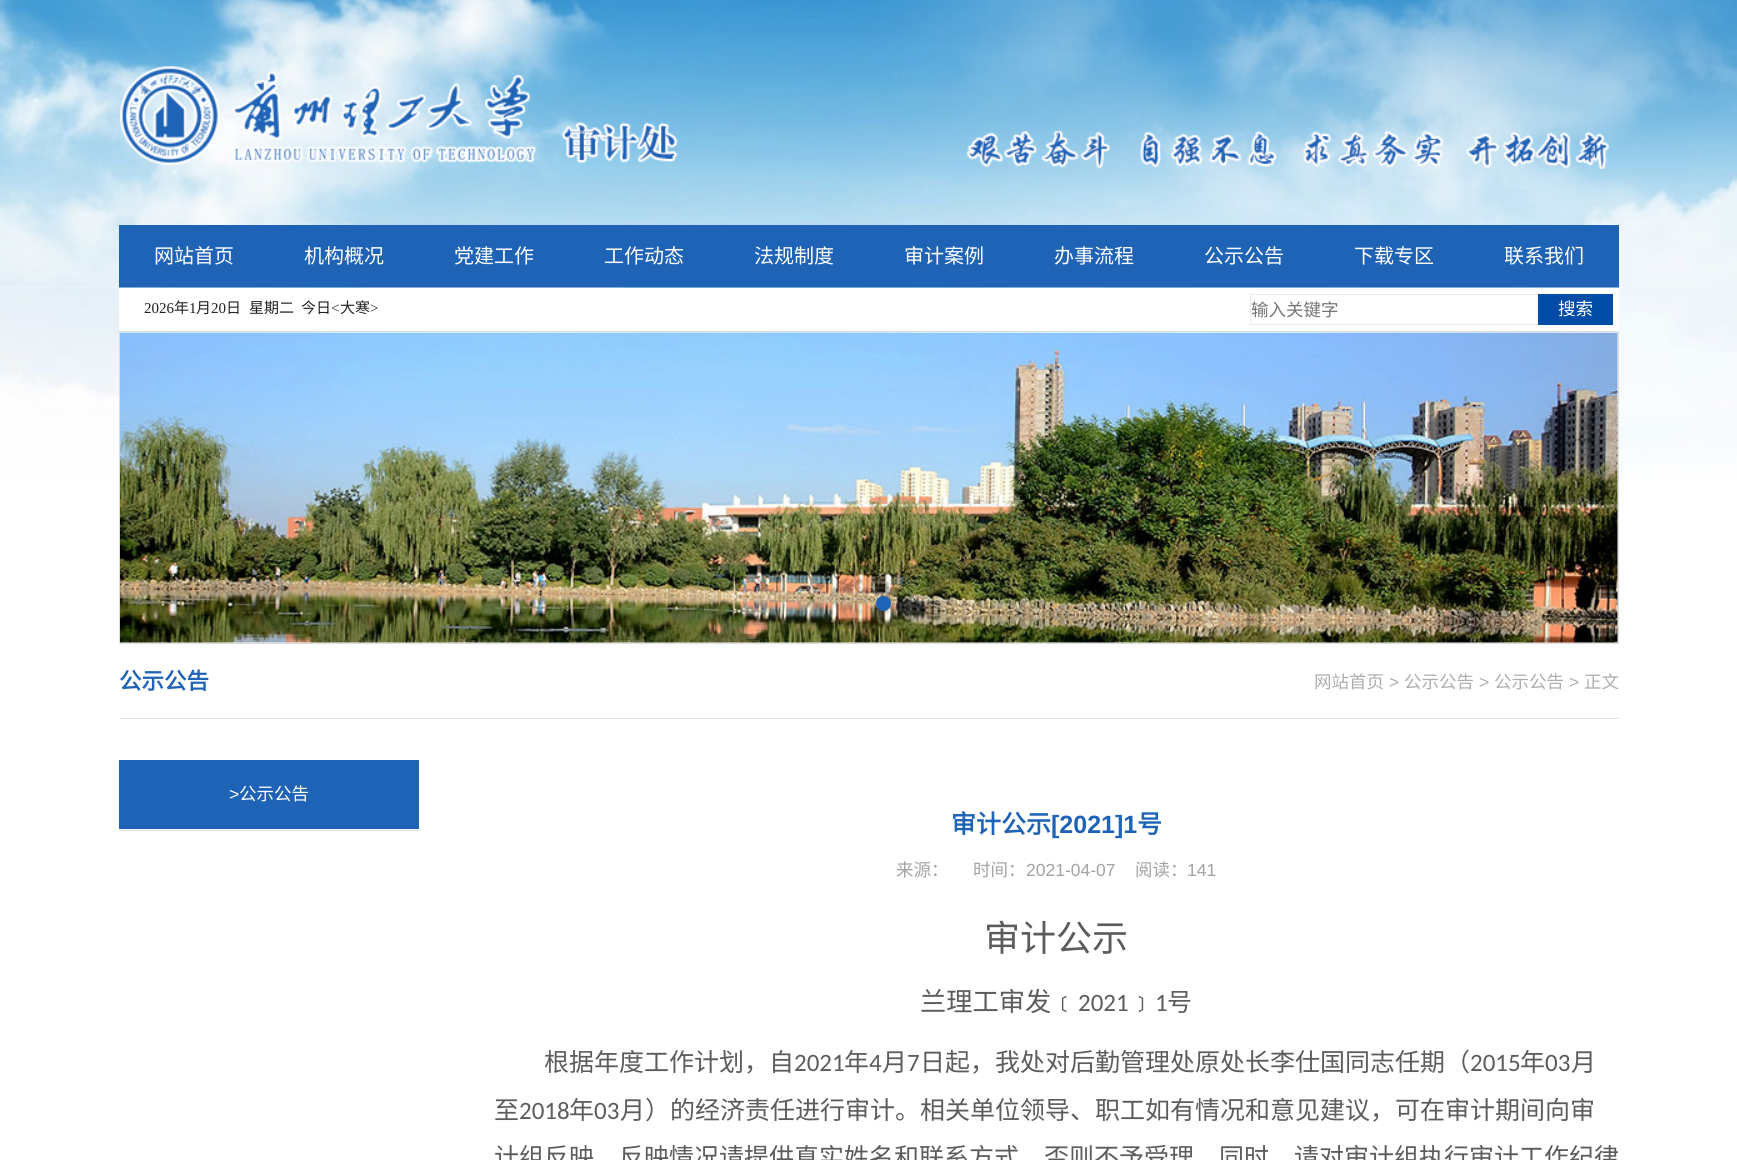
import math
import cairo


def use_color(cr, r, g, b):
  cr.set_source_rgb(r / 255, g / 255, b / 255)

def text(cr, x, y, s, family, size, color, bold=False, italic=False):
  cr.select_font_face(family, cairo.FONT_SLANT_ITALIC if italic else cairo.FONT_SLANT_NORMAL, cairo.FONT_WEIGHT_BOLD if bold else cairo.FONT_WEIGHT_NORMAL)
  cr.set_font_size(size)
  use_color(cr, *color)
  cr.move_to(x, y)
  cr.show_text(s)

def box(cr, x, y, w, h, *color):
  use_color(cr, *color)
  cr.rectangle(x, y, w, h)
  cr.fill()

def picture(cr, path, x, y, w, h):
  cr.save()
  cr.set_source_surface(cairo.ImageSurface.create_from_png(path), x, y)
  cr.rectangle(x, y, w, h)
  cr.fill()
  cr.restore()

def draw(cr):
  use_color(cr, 255, 255, 255)
  cr.paint()
  picture(cr, "img_01.png", 0, 0, 1737, 225)
  picture(cr, "img_02.png", 120, 66, 558, 99)
  picture(cr, "img_03.png", 966, 131, 644, 38)
  picture(cr, "img_04.png", 0, 225, 1737, 63)
  box(cr, 119, 225, 1500, 63, 31, 99, 183)
  picture(cr, "img_05.png", 0, 287, 1737, 194)
  box(cr, 119, 288, 1500, 43, 255, 255, 255)
  box(cr, 1250, 294, 288, 1, 235, 235, 235)
  box(cr, 1250, 324, 288, 1, 235, 235, 235)
  box(cr, 1250, 294, 1, 31, 235, 235, 235)
  box(cr, 1538, 294, 75, 31, 0, 76, 166)
  cr.rectangle(119.5, 331.5, 1499, 312)
  use_color(cr, 221, 221, 221)
  cr.set_line_width(1)
  cr.stroke()
  picture(cr, "img_06.png", 120, 332, 1498, 311)
  use_color(cr, 31, 99, 183)
  cr.arc(883.5, 603.5, 7.5, 0, 2 * math.pi)
  cr.fill()
  box(cr, 119, 718, 1500, 1, 229, 229, 229)
  box(cr, 119, 830, 300, 1, 229, 229, 229)
  box(cr, 119, 760, 300, 69, 31, 99, 183)
  text(cr, 154, 263, "网站首页", "Noto Sans CJK SC", 20, (255, 255, 255))
  text(cr, 304, 263, "机构概况", "Noto Sans CJK SC", 20, (255, 255, 255))
  text(cr, 454, 263, "党建工作", "Noto Sans CJK SC", 20, (255, 255, 255))
  text(cr, 604, 263, "工作动态", "Noto Sans CJK SC", 20, (255, 255, 255))
  text(cr, 754, 263, "法规制度", "Noto Sans CJK SC", 20, (255, 255, 255))
  text(cr, 904, 263, "审计案例", "Noto Sans CJK SC", 20, (255, 255, 255))
  text(cr, 1054, 263, "办事流程", "Noto Sans CJK SC", 20, (255, 255, 255))
  text(cr, 1204, 263, "公示公告", "Noto Sans CJK SC", 20, (255, 255, 255))
  text(cr, 1354, 263, "下载专区", "Noto Sans CJK SC", 20, (255, 255, 255))
  text(cr, 1504, 263, "联系我们", "Noto Sans CJK SC", 20, (255, 255, 255))
  text(cr, 144, 313, "2026", "Liberation Serif", 15, (34, 34, 34))
  text(cr, 174, 313, "年", "Noto Sans CJK SC", 15, (34, 34, 34))
  text(cr, 189, 313, "1", "Liberation Serif", 15, (34, 34, 34))
  text(cr, 196, 313, "月", "Noto Sans CJK SC", 15, (34, 34, 34))
  text(cr, 211, 313, "20", "Liberation Serif", 15, (34, 34, 34))
  text(cr, 226, 313, "日", "Noto Sans CJK SC", 15, (34, 34, 34))
  text(cr, 249, 313, "星期二", "Noto Sans CJK SC", 15, (34, 34, 34))
  text(cr, 301, 313, "今日", "Noto Sans CJK SC", 15, (34, 34, 34))
  text(cr, 331, 313, "<", "Liberation Serif", 15, (34, 34, 34))
  text(cr, 340, 313, "大寒", "Noto Sans CJK SC", 15, (34, 34, 34))
  text(cr, 370, 313, ">", "Liberation Serif", 15, (34, 34, 34))
  text(cr, 1251, 316, "输入关键字", "Noto Sans CJK SC", 17.5, (117, 117, 117))
  text(cr, 1558, 315, "搜索", "Noto Sans CJK SC", 17.5, (255, 255, 255))
  text(cr, 119, 689, "公示公告", "Noto Sans CJK SC", 22.5, (31, 99, 183), bold=True)
  text(cr, 1314, 688, "网站首页", "Noto Sans CJK SC", 17.5, (174, 174, 174))
  text(cr, 1389, 688, ">", "Liberation Sans", 17.5, (174, 174, 174))
  text(cr, 1404, 688, "公示公告", "Noto Sans CJK SC", 17.5, (174, 174, 174))
  text(cr, 1479, 688, ">", "Liberation Sans", 17.5, (174, 174, 174))
  text(cr, 1494, 688, "公示公告", "Noto Sans CJK SC", 17.5, (174, 174, 174))
  text(cr, 1569, 688, ">", "Liberation Sans", 17.5, (174, 174, 174))
  text(cr, 1584, 688, "正文", "Noto Sans CJK SC", 17.5, (174, 174, 174))
  text(cr, 229, 800, ">", "Liberation Sans", 17.5, (255, 255, 255))
  text(cr, 239, 800, "公示公告", "Noto Sans CJK SC", 17.5, (255, 255, 255))
  text(cr, 951, 833, "审计公示", "Noto Sans CJK SC", 25, (31, 99, 183), bold=True)
  text(cr, 1051, 833, "[2021]1", "Liberation Sans", 25, (31, 99, 183), bold=True)
  text(cr, 1137, 833, "号", "Noto Sans CJK SC", 25, (31, 99, 183), bold=True)
  text(cr, 896, 876, "来源：", "Noto Sans CJK SC", 17.5, (163, 163, 163))
  text(cr, 973, 876, "时间：", "Noto Sans CJK SC", 17.5, (163, 163, 163))
  text(cr, 1026, 876, "2021-04-07", "Liberation Sans", 17.5, (163, 163, 163))
  text(cr, 1135, 876, "阅读：", "Noto Sans CJK SC", 17.5, (163, 163, 163))
  text(cr, 1187, 876, "141", "Liberation Sans", 17.5, (163, 163, 163))
  text(cr, 984, 951, "审计公示", "Noto Sans CJK SC", 36, (92, 92, 92))
  text(cr, 920, 1011, "兰理工审发﹝", "Noto Sans CJK SC", 26.25, (92, 92, 92))
  text(cr, 1078, 1011, "2021", "Carlito", 25, (92, 92, 92))
  text(cr, 1128, 1011, "﹞", "Noto Sans CJK SC", 26.25, (92, 92, 92))
  text(cr, 1155, 1011, "1", "Carlito", 25, (92, 92, 92))
  text(cr, 1167, 1011, "号", "Noto Sans CJK SC", 25, (92, 92, 92))
  text(cr, 544, 1071, "根据年度工作计划，自", "Noto Sans CJK SC", 25, (92, 92, 92))
  text(cr, 794, 1071, "2021", "Carlito", 25, (92, 92, 92))
  text(cr, 844, 1071, "年", "Noto Sans CJK SC", 25, (92, 92, 92))
  text(cr, 869, 1071, "4", "Carlito", 25, (92, 92, 92))
  text(cr, 882, 1071, "月", "Noto Sans CJK SC", 25, (92, 92, 92))
  text(cr, 907, 1071, "7", "Carlito", 25, (92, 92, 92))
  text(cr, 920, 1071, "日起，我处对后勤管理处原处长李仕国同志任期（", "Noto Sans CJK SC", 25, (92, 92, 92))
  text(cr, 1470, 1071, "2015", "Carlito", 25, (92, 92, 92))
  text(cr, 1520, 1071, "年", "Noto Sans CJK SC", 25, (92, 92, 92))
  text(cr, 1545, 1071, "03", "Carlito", 25, (92, 92, 92))
  text(cr, 1571, 1071, "月", "Noto Sans CJK SC", 25, (92, 92, 92))
  text(cr, 494, 1119, "至", "Noto Sans CJK SC", 25, (92, 92, 92))
  text(cr, 519, 1119, "2018", "Carlito", 25, (92, 92, 92))
  text(cr, 569, 1119, "年", "Noto Sans CJK SC", 25, (92, 92, 92))
  text(cr, 594, 1119, "03", "Carlito", 25, (92, 92, 92))
  text(cr, 620, 1119, "月）的经济责任进行审计。相关单位领导、职工如有情况和意见建议，可在审计期间向审", "Noto Sans CJK SC", 25, (92, 92, 92))
  text(cr, 494, 1166, "计组反映，反映情况请提供真实姓名和联系方式，否则不予受理。同时，请对审计组执行审计工作纪律", "Noto Sans CJK SC", 25, (92, 92, 92))


surface = cairo.ImageSurface(cairo.FORMAT_RGB24, 1737, 1160)
cr = cairo.Context(surface)
options = cairo.FontOptions()
options.set_hint_metrics(cairo.HINT_METRICS_OFF)
options.set_hint_style(cairo.HINT_STYLE_NONE)
cr.set_font_options(options)
cr.set_miter_limit(4)
draw(cr)
surface.write_to_png("out.png")
